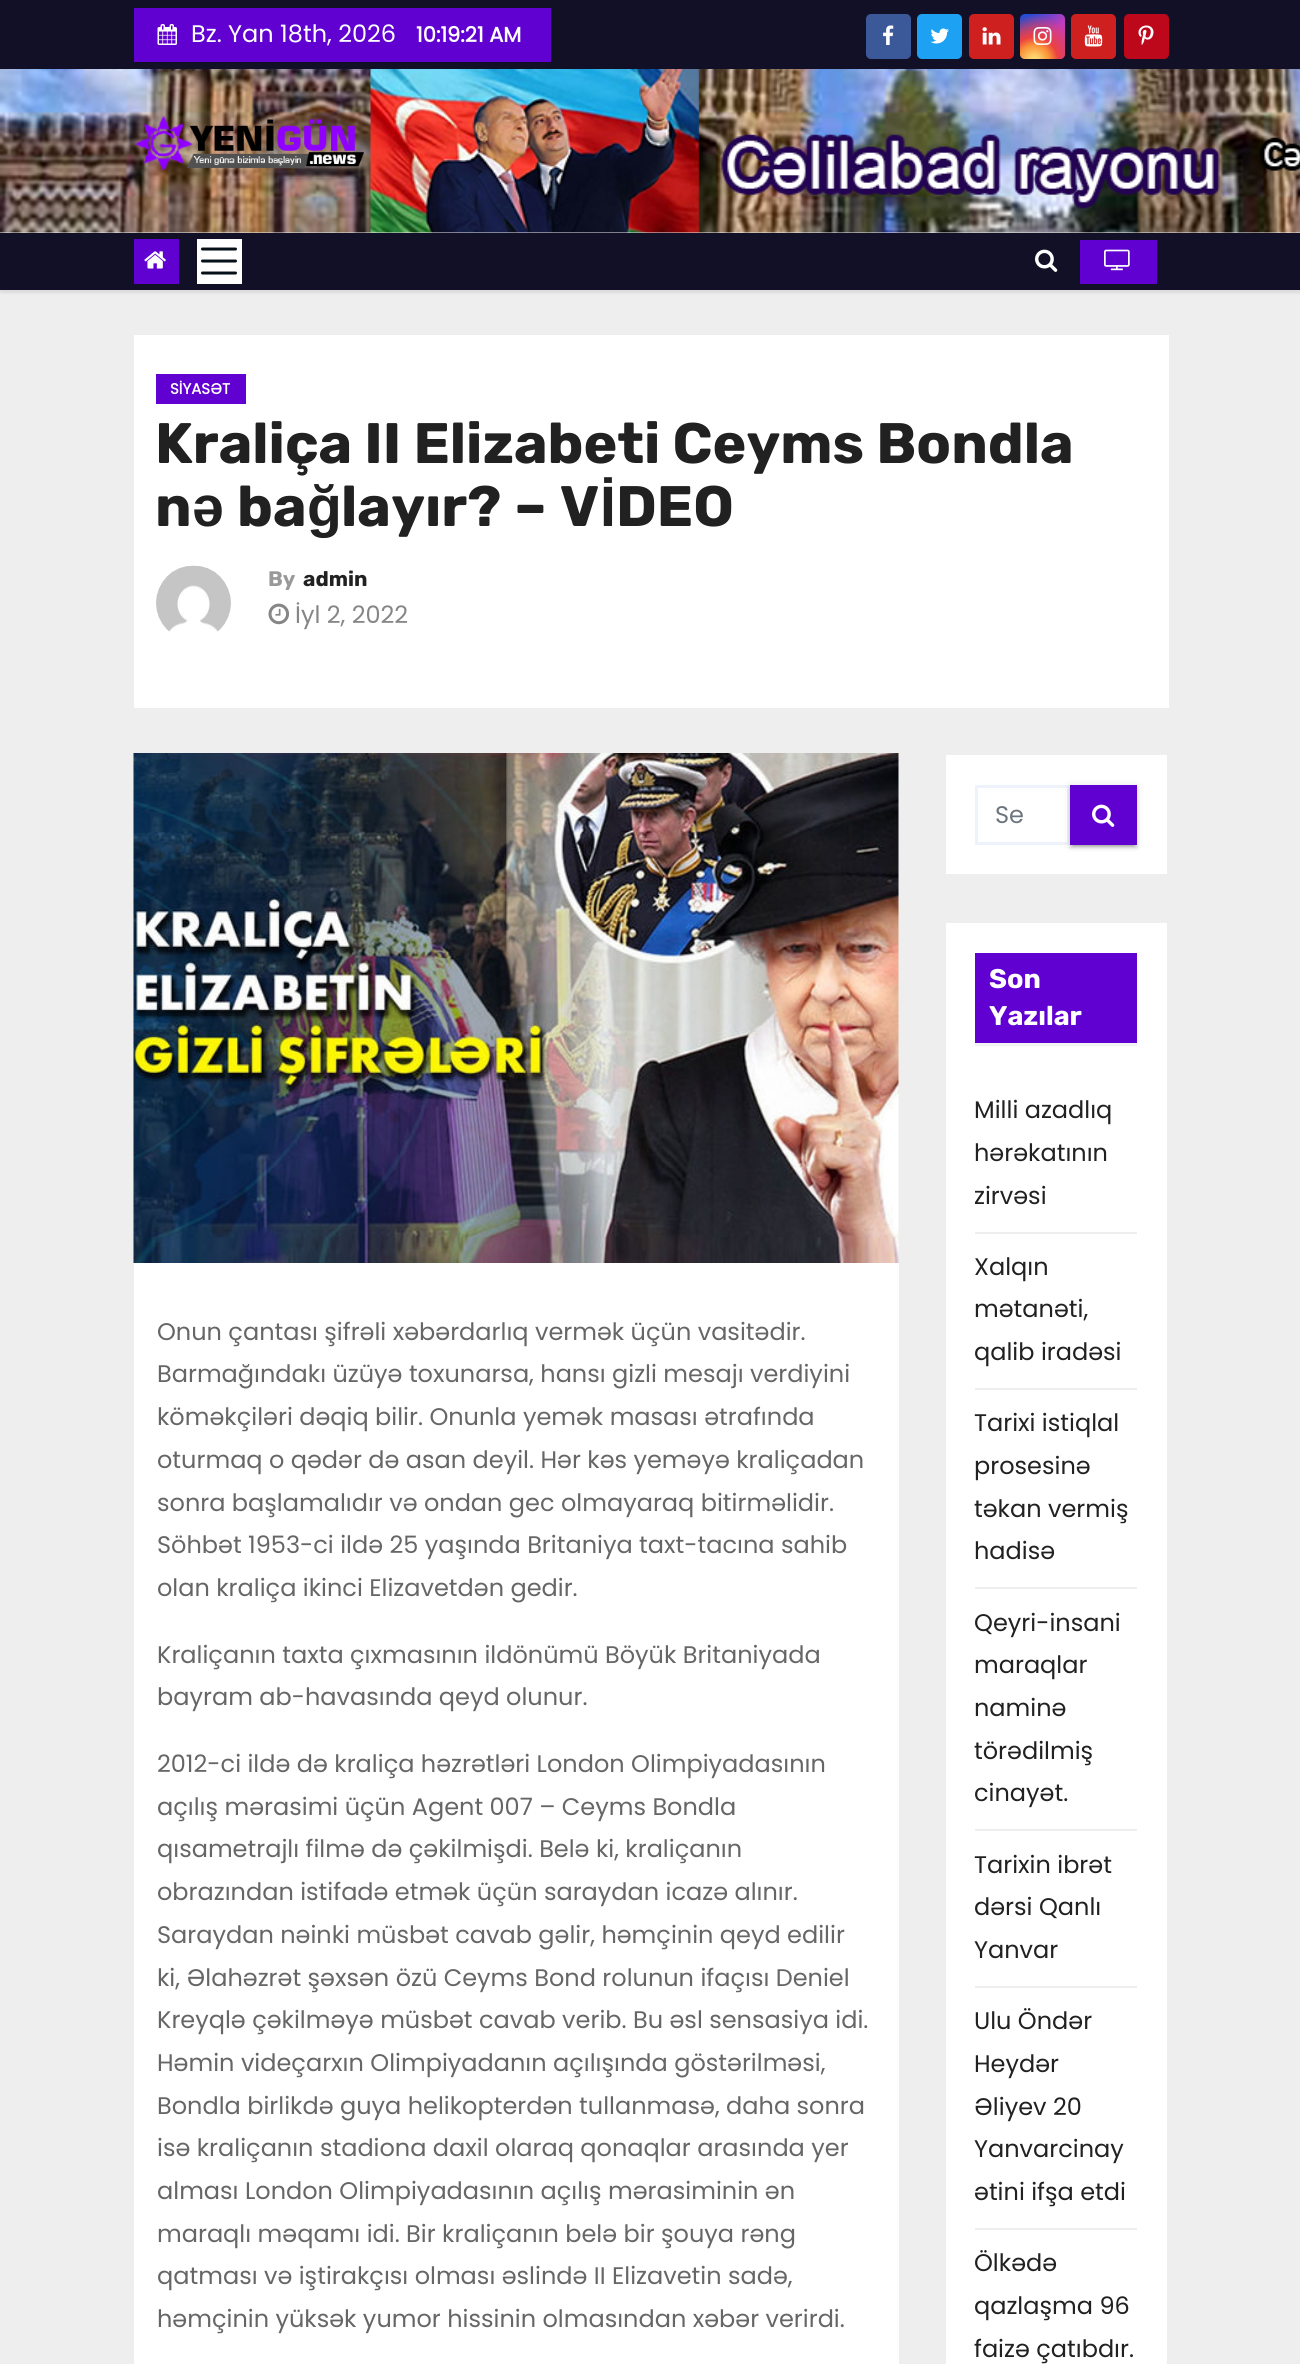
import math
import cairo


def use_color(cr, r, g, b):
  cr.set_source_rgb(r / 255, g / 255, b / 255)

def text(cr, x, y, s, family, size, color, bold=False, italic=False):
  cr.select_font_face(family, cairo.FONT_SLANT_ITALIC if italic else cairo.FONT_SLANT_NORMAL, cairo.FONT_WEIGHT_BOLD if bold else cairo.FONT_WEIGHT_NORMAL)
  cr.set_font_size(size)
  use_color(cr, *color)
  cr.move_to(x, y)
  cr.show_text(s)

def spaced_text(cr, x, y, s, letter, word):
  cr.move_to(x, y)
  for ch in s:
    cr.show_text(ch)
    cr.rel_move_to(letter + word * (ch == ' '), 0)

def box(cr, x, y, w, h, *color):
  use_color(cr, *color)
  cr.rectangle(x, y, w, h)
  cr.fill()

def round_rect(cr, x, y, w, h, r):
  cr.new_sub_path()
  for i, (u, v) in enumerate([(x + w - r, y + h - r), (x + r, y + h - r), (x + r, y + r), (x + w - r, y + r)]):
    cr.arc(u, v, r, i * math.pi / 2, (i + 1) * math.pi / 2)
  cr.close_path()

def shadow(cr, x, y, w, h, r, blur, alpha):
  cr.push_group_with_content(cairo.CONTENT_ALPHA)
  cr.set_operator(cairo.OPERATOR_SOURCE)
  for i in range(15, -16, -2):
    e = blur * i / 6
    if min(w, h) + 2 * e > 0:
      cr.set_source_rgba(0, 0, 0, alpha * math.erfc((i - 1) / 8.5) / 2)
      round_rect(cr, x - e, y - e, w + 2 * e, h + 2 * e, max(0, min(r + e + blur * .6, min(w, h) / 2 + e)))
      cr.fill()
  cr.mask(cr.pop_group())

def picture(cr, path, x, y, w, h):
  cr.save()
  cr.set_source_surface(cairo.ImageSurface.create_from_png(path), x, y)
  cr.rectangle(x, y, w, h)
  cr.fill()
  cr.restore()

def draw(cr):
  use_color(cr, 238, 238, 238)
  cr.paint()
  box(cr, 0, 0, 1300, 69, 18, 16, 38)
  box(cr, 134, 8, 417, 54, 96, 1, 210)
  picture(cr, "img_01.png", 157, 24, 20, 21)
  use_color(cr, 59, 89, 152)
  round_rect(cr, 866, 14, 45, 45, 5)
  cr.fill()
  picture(cr, "img_02.png", 883, 25, 11, 20)
  use_color(cr, 29, 161, 242)
  round_rect(cr, 917, 14, 45, 45, 5)
  cr.fill()
  picture(cr, "img_03.png", 930, 28, 19, 16)
  use_color(cr, 205, 32, 31)
  round_rect(cr, 969, 14, 45, 45, 5)
  cr.fill()
  picture(cr, "img_04.png", 982, 27, 19, 18)
  gradient = cairo.LinearGradient(1020, 14, 1065, 59)
  gradient.add_color_stop_rgba(0.12, 0.137, 0.294, 0.843, 1)
  gradient.add_color_stop_rgba(0.58, 0.765, 0.235, 0.745, 1)
  cr.set_source(gradient)
  round_rect(cr, 1020, 14, 45, 45, 5)
  cr.fill()
  gradient = cairo.RadialGradient(1034, 61, 0, 1034, 61, 57)
  gradient.add_color_stop_rgba(0, 1, 0.882, 0.49, 1)
  gradient.add_color_stop_rgba(0.1, 1, 0.804, 0.412, 1)
  gradient.add_color_stop_rgba(0.28, 0.98, 0.569, 0.216, 1)
  gradient.add_color_stop_rgba(0.42, 0.922, 0.255, 0.255, 1)
  gradient.add_color_stop_rgba(0.82, 0.922, 0.255, 0.255, 0)
  cr.set_source(gradient)
  round_rect(cr, 1020, 14, 45, 45, 5)
  cr.fill()
  picture(cr, "img_05.png", 1033, 27, 19, 18)
  use_color(cr, 205, 32, 31)
  round_rect(cr, 1071, 14, 45, 45, 5)
  cr.fill()
  picture(cr, "img_06.png", 1084, 25, 19, 22)
  use_color(cr, 189, 8, 28)
  round_rect(cr, 1124, 14, 45, 45, 5)
  cr.fill()
  picture(cr, "img_07.png", 1138, 25, 16, 20)
  picture(cr, "img_08.png", 0, 69, 1300, 164)
  picture(cr, "img_09.png", 135, 115, 229, 57)
  use_color(cr, 0, 0, 0)
  shadow(cr, 0, 236, 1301, 57, 0, 1.5, 0.08)
  box(cr, 0, 233, 1300, 57, 18, 16, 38)
  box(cr, 134, 239, 45, 45, 96, 1, 210)
  picture(cr, "img_10.png", 144, 251, 22, 18)
  box(cr, 197, 239, 45, 45, 255, 255, 255)
  cr.new_path()
  cr.move_to(202.5, 249)
  cr.line_to(235.5, 249)
  cr.move_to(202.5, 261)
  cr.line_to(235.5, 261)
  cr.move_to(202.5, 273)
  cr.line_to(235.5, 273)
  use_color(cr, 6, 16, 24)
  cr.set_line_width(3)
  cr.set_line_cap(cairo.LINE_CAP_ROUND)
  cr.stroke()
  picture(cr, "img_11.png", 1035, 249, 23, 23)
  box(cr, 1080, 240, 77, 44, 96, 1, 210)
  picture(cr, "img_12.png", 1104, 249, 26, 22)
  box(cr, 134, 335, 1035, 373, 255, 255, 255)
  box(cr, 156, 374, 90, 30, 96, 1, 210)
  picture(cr, "img_13.png", 156, 565, 75, 67)
  picture(cr, "img_14.png", 268, 603, 22, 22)
  picture(cr, "img_15.png", 133, 753, 766, 510)
  box(cr, 134, 1263, 765, 1101, 255, 255, 255)
  box(cr, 946, 755, 221, 119, 255, 255, 255)
  cr.rectangle(976.5, 786.5, 92, 57)
  use_color(cr, 238, 243, 251)
  cr.set_line_cap(cairo.LINE_CAP_BUTT)
  cr.stroke()
  use_color(cr, 0, 0, 0)
  shadow(cr, 1070, 786, 67, 60, 0, 4, 0.12)
  shadow(cr, 1073, 792, 61, 54, 0, 1, 0.2)
  shadow(cr, 1070, 788, 67, 60, 0, 1.5, 0.14)
  box(cr, 1070, 785, 67, 60, 96, 1, 210)
  picture(cr, "img_16.png", 1092, 804, 23, 23)
  box(cr, 946, 923, 221, 1441, 255, 255, 255)
  box(cr, 975, 1043, 162, 3, 242, 242, 242)
  box(cr, 975, 953, 162, 90, 96, 1, 210)
  box(cr, 975, 1232, 162, 2, 238, 238, 238)
  box(cr, 975, 1388, 162, 2, 238, 238, 238)
  box(cr, 975, 1587, 162, 2, 238, 238, 238)
  box(cr, 975, 1829, 162, 2, 238, 238, 238)
  box(cr, 975, 1986, 162, 2, 238, 238, 238)
  box(cr, 975, 2228, 162, 2, 238, 238, 238)
  text(cr, 191, 42, "Bz. Yan 18th, 2026", "Poppins", 24, (255, 255, 255))
  text(cr, 416, 42, "10:19:21 AM", "Poppins", 21, (255, 255, 255), bold=True)
  text(cr, 170, 394, "SİYASƏT", "Poppins", 15, (255, 255, 255), bold=True)
  text(cr, 155, 463, "Kraliça II Elizabeti Ceyms Bondla", "Rubik", 57, (33, 33, 33), bold=True)
  text(cr, 155, 526, "n", "Rubik", 57, (33, 33, 33), bold=True)
  text(cr, 192, 526, "ə", "Liberation Sans", 57, (33, 33, 33), bold=True)
  text(cr, 237, 526, "ba", "Rubik", 57, (33, 33, 33), bold=True)
  text(cr, 307, 526, "ğ", "Liberation Sans", 57, (33, 33, 33), bold=True)
  cr.select_font_face("Rubik", cairo.FONT_SLANT_NORMAL, cairo.FONT_WEIGHT_BOLD)
  spaced_text(cr, 341, 526, "layır? – V", 0, 1)
  text(cr, 600, 526, "İ", "Liberation Sans", 57, (33, 33, 33), bold=True)
  text(cr, 616, 526, "DEO", "Rubik", 57, (33, 33, 33), bold=True)
  text(cr, 268, 586, "By", "Rubik", 21, (153, 153, 153), bold=True)
  text(cr, 303, 586, "admin", "Rubik", 21, (33, 33, 33), bold=True)
  text(cr, 295, 623, "İyl 2, 2022", "Poppins", 24, (134, 134, 134))
  text(cr, 157, 1340, "Onun çantası şifrəli xəbərdarlıq vermək üçün vasitədir.", "Poppins", 24, (102, 102, 102))
  text(cr, 157, 1382, "Barmağındakı üzüyə toxunarsa, hansı gizli mesajı verdiyini", "Poppins", 24, (102, 102, 102))
  text(cr, 157, 1425, "köməkçiləri dəqiq bilir. Onunla yemək masası ətrafında", "Poppins", 24, (102, 102, 102))
  text(cr, 157, 1468, "oturmaq o qədər də asan deyil. Hər kəs yeməyə kraliçadan", "Poppins", 24, (102, 102, 102))
  text(cr, 157, 1511, "sonra başlamalıdır və ondan gec olmayaraq bitirməlidir.", "Poppins", 24, (102, 102, 102))
  text(cr, 157, 1553, "Söhbət 1953-ci ildə 25 yaşında Britaniya taxt-tacına sahib", "Poppins", 24, (102, 102, 102))
  text(cr, 157, 1596, "olan kraliça ikinci Elizavetdən gedir.", "Poppins", 24, (102, 102, 102))
  text(cr, 157, 1663, "Kraliçanın taxta çıxmasının ildönümü Böyük Britaniyada", "Poppins", 24, (102, 102, 102))
  text(cr, 157, 1705, "bayram ab-havasında qeyd olunur.", "Poppins", 24, (102, 102, 102))
  text(cr, 157, 1772, "2012-ci ildə də kraliça həzrətləri London Olimpiyadasının", "Poppins", 24, (102, 102, 102))
  text(cr, 157, 1815, "açılış mərasimi üçün Agent 007 – Ceyms Bondla", "Poppins", 24, (102, 102, 102))
  text(cr, 157, 1857, "qısametrajlı filmə də çəkilmişdi. Belə ki, kraliçanın", "Poppins", 24, (102, 102, 102))
  text(cr, 157, 1900, "obrazından istifadə etmək üçün saraydan icazə alınır.", "Poppins", 24, (102, 102, 102))
  text(cr, 157, 1943, "Saraydan nəinki müsbət cavab gəlir, həmçinin qeyd edilir", "Poppins", 24, (102, 102, 102))
  text(cr, 157, 1986, "ki, Əlahəzrət şəxsən özü Ceyms Bond rolunun ifaçısı Deniel", "Poppins", 24, (102, 102, 102))
  text(cr, 157, 2028, "Kreyqlə çəkilməyə müsbət cavab verib. Bu əsl sensasiya idi.", "Poppins", 24, (102, 102, 102))
  text(cr, 157, 2071, "Həmin videçarxın Olimpiyadanın açılışında göstərilməsi,", "Poppins", 24, (102, 102, 102))
  text(cr, 157, 2114, "Bondla birlikdə guya helikopterdən tullanmasə, daha sonra", "Poppins", 24, (102, 102, 102))
  text(cr, 157, 2156, "isə kraliçanın stadiona daxil olaraq qonaqlar arasında yer", "Poppins", 24, (102, 102, 102))
  text(cr, 157, 2199, "alması London Olimpiyadasının açılış mərasiminin ən", "Poppins", 24, (102, 102, 102))
  text(cr, 157, 2242, "maraqlı məqamı idi. Bir kraliçanın belə bir şouya rəng", "Poppins", 24, (102, 102, 102))
  text(cr, 157, 2284, "qatması və iştirakçısı olması əslində II Elizavetin sadə,", "Poppins", 24, (102, 102, 102))
  text(cr, 157, 2327, "həmçinin yüksək yumor hissinin olmasından xəbər verirdi.", "Poppins", 24, (102, 102, 102))
  text(cr, 995, 823, "Se", "Poppins", 24, (108, 117, 125))
  text(cr, 989, 988, "Son", "Rubik", 27, (255, 255, 255), bold=True)
  text(cr, 989, 1025, "Yazılar", "Rubik", 27, (255, 255, 255), bold=True)
  text(cr, 974, 1118, "Milli azadlıq", "Poppins", 24, (33, 33, 33))
  text(cr, 974, 1161, "hərəkatının", "Poppins", 24, (33, 33, 33))
  text(cr, 974, 1204, "zirvəsi", "Poppins", 24, (33, 33, 33))
  text(cr, 974, 1275, "Xalqın", "Poppins", 24, (33, 33, 33))
  text(cr, 974, 1317, "mətanəti,", "Poppins", 24, (33, 33, 33))
  text(cr, 974, 1360, "qalib iradəsi", "Poppins", 24, (33, 33, 33))
  text(cr, 974, 1431, "Tarixi istiqlal", "Poppins", 24, (33, 33, 33))
  text(cr, 974, 1474, "prosesinə", "Poppins", 24, (33, 33, 33))
  text(cr, 974, 1517, "təkan vermiş", "Poppins", 24, (33, 33, 33))
  text(cr, 974, 1559, "hadisə", "Poppins", 24, (33, 33, 33))
  text(cr, 974, 1631, "Qeyri-insani", "Poppins", 24, (33, 33, 33))
  text(cr, 974, 1673, "maraqlar", "Poppins", 24, (33, 33, 33))
  text(cr, 974, 1716, "naminə", "Poppins", 24, (33, 33, 33))
  text(cr, 974, 1759, "törədilmiş", "Poppins", 24, (33, 33, 33))
  text(cr, 974, 1801, "cinayət.", "Poppins", 24, (33, 33, 33))
  text(cr, 974, 1873, "Tarixin ibrət", "Poppins", 24, (33, 33, 33))
  text(cr, 974, 1915, "dərsi Qanlı", "Poppins", 24, (33, 33, 33))
  text(cr, 974, 1958, "Yanvar", "Poppins", 24, (33, 33, 33))
  text(cr, 974, 2029, "Ulu Öndər", "Poppins", 24, (33, 33, 33))
  text(cr, 974, 2072, "Heydər", "Poppins", 24, (33, 33, 33))
  text(cr, 974, 2115, "Əliyev 20", "Poppins", 24, (33, 33, 33))
  text(cr, 974, 2157, "Yanvarcinay", "Poppins", 24, (33, 33, 33))
  text(cr, 974, 2200, "ətini ifşa etdi", "Poppins", 24, (33, 33, 33))
  text(cr, 974, 2271, "Ölkədə", "Poppins", 24, (33, 33, 33))
  text(cr, 974, 2314, "qazlaşma 96", "Poppins", 24, (33, 33, 33))
  text(cr, 974, 2357, "faizə çatıbdır.", "Poppins", 24, (33, 33, 33))


surface = cairo.ImageSurface(cairo.FORMAT_RGB24, 1300, 2364)
cr = cairo.Context(surface)
options = cairo.FontOptions()
options.set_hint_metrics(cairo.HINT_METRICS_OFF)
options.set_hint_style(cairo.HINT_STYLE_NONE)
cr.set_font_options(options)
cr.set_miter_limit(4)
draw(cr)
surface.write_to_png("out.png")
